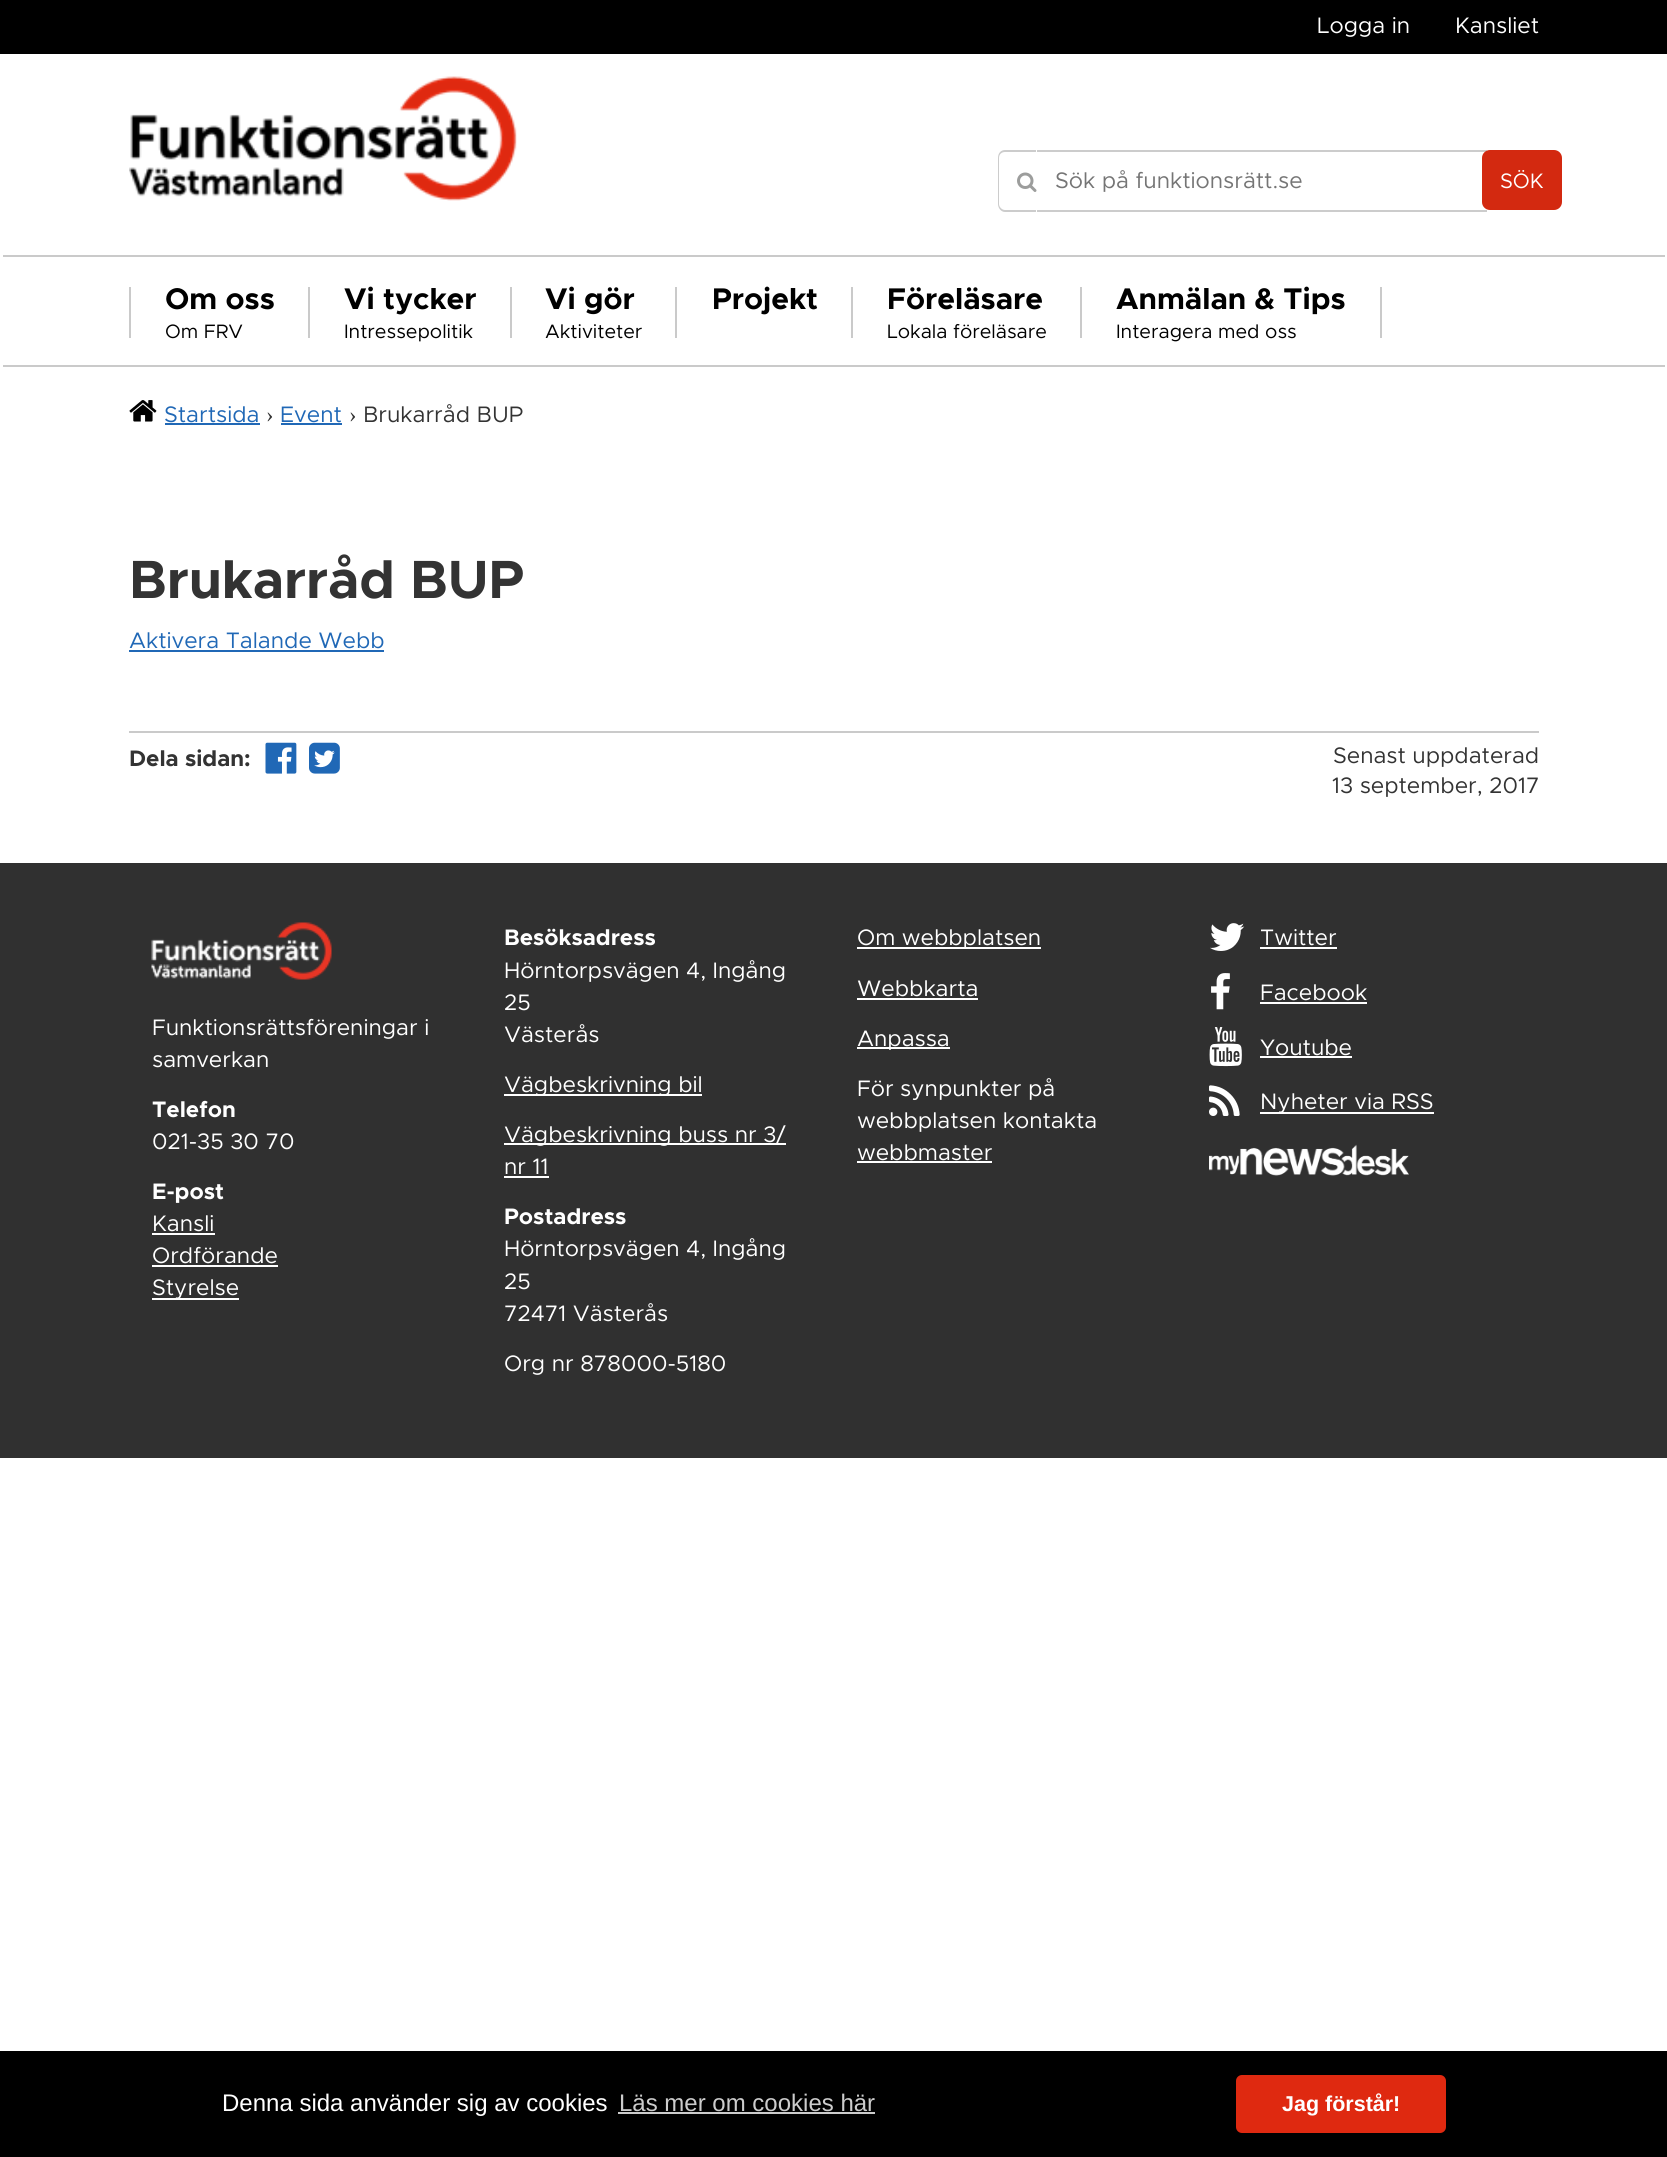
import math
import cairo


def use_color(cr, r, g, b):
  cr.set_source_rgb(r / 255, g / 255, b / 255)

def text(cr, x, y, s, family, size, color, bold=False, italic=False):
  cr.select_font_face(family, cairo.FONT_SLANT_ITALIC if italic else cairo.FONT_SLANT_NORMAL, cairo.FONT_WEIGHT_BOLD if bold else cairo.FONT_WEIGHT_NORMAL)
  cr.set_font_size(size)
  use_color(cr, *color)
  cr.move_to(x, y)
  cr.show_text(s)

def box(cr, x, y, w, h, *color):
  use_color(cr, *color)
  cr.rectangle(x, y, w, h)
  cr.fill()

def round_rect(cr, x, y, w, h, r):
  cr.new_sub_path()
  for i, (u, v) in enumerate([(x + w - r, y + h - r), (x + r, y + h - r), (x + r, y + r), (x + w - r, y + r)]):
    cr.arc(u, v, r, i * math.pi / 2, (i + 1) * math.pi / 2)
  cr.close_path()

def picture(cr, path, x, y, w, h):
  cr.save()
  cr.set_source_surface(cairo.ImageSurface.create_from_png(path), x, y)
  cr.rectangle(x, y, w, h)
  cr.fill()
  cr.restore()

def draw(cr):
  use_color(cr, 255, 255, 255)
  cr.paint()
  box(cr, 3, 255, 1662, 2, 202, 202, 202)
  box(cr, 3, 365, 1662, 2, 202, 202, 202)
  box(cr, 0, 0, 1667, 54, 0, 0, 0)
  box(cr, 129, 287, 2, 51, 202, 202, 202)
  box(cr, 308, 287, 2, 51, 202, 202, 202)
  box(cr, 510, 287, 2, 51, 202, 202, 202)
  box(cr, 675, 287, 2, 51, 202, 202, 202)
  box(cr, 851, 287, 2, 51, 202, 202, 202)
  box(cr, 1380, 287, 2, 51, 202, 202, 202)
  box(cr, 1080, 287, 2, 51, 202, 202, 202)
  picture(cr, "img_01.png", 129, 76, 388, 125)
  use_color(cr, 204, 204, 204)
  cr.set_fill_rule(cairo.FILL_RULE_EVEN_ODD)
  cr.new_path()
  cr.move_to(1005, 150)
  cr.line_to(1036, 150)
  cr.line_to(1036, 212)
  cr.line_to(1005, 212)
  cr.curve_to(1001, 212, 998, 208, 998, 204)
  cr.line_to(998, 158)
  cr.curve_to(998, 153, 1001, 150, 1005, 150)
  cr.close_path()
  cr.move_to(1005, 152)
  cr.line_to(1036, 152)
  cr.line_to(1036, 210)
  cr.line_to(1005, 210)
  cr.curve_to(1002, 210, 999, 207, 999, 204)
  cr.line_to(999, 158)
  cr.curve_to(999, 154, 1002, 152, 1005, 152)
  cr.close_path()
  cr.fill()
  picture(cr, "img_02.png", 1017, 172, 20, 20)
  box(cr, 1037, 150, 450, 2, 204, 204, 204)
  box(cr, 1037, 210, 450, 2, 204, 204, 204)
  use_color(cr, 211, 41, 16)
  round_rect(cr, 1482, 150, 80, 60, 8)
  cr.fill()
  picture(cr, "img_03.png", 129, 400, 28, 22)
  box(cr, 165, 423, 95, 2, 32, 104, 182)
  box(cr, 281, 423, 61, 2, 32, 104, 182)
  box(cr, 129, 650, 255, 2, 32, 104, 182)
  box(cr, 129, 731, 1410, 2, 202, 202, 202)
  picture(cr, "img_04.png", 265, 742, 32, 32)
  picture(cr, "img_05.png", 309, 742, 31, 32)
  box(cr, 0, 863, 1667, 595, 48, 48, 48)
  picture(cr, "img_06.png", 151, 922, 181, 58)
  box(cr, 152, 1233, 63, 2, 255, 255, 255)
  box(cr, 152, 1265, 126, 2, 255, 255, 255)
  box(cr, 152, 1298, 87, 2, 255, 255, 255)
  box(cr, 504, 1094, 198, 2, 255, 255, 255)
  box(cr, 504, 1143, 282, 2, 255, 255, 255)
  box(cr, 504, 1176, 45, 2, 255, 255, 255)
  box(cr, 857, 947, 184, 2, 255, 255, 255)
  box(cr, 857, 998, 121, 2, 255, 255, 255)
  box(cr, 857, 1047, 93, 2, 255, 255, 255)
  box(cr, 857, 1161, 135, 2, 255, 255, 255)
  picture(cr, "img_07.png", 1210, 923, 35, 28)
  box(cr, 1260, 947, 77, 2, 255, 255, 255)
  picture(cr, "img_08.png", 1211, 973, 19, 37)
  box(cr, 1260, 1002, 107, 2, 255, 255, 255)
  picture(cr, "img_09.png", 1209, 1027, 33, 40)
  box(cr, 1260, 1056, 92, 2, 255, 255, 255)
  picture(cr, "img_10.png", 1209, 1085, 31, 31)
  box(cr, 1260, 1112, 174, 2, 255, 255, 255)
  picture(cr, "img_11.png", 1209, 1144, 200, 32)
  box(cr, 0, 2051, 1667, 106, 0, 0, 0)
  box(cr, 618, 2112, 257, 2, 204, 204, 204)
  use_color(cr, 223, 41, 16)
  round_rect(cr, 1236, 2075, 210, 58, 6)
  cr.fill()
  text(cr, 1317, 33, "Logga in", "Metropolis", 22.5, (255, 255, 255))
  text(cr, 1455, 33, "Kansliet", "Metropolis", 22.5, (255, 255, 255))
  text(cr, 165, 309, "Om oss", "Metropolis", 30, (0, 0, 0), bold=True)
  text(cr, 165, 338, "Om FRV", "Metropolis", 19.5, (0, 0, 0))
  text(cr, 344, 309, "Vi tycker", "Metropolis", 30, (0, 0, 0), bold=True)
  text(cr, 344, 338, "Intressepolitik", "Metropolis", 19.5, (0, 0, 0))
  text(cr, 545, 309, "Vi gör", "Metropolis", 30, (0, 0, 0), bold=True)
  text(cr, 545, 338, "Aktiviteter", "Metropolis", 19.5, (0, 0, 0))
  text(cr, 712, 309, "Projekt", "Metropolis", 30, (0, 0, 0), bold=True)
  text(cr, 887, 309, "Föreläsare", "Metropolis", 30, (0, 0, 0), bold=True)
  text(cr, 887, 338, "Lokala föreläsare", "Metropolis", 19.5, (0, 0, 0))
  text(cr, 1116, 309, "Anmälan & Tips", "Metropolis", 30, (0, 0, 0), bold=True)
  text(cr, 1116, 338, "Interagera med oss", "Metropolis", 19.5, (0, 0, 0))
  text(cr, 1055, 188, "Sök på funktionsrätt.se", "Metropolis", 22.5, (117, 117, 117))
  text(cr, 1500, 188, "SÖK", "Metropolis", 21, (255, 255, 255))
  text(cr, 164, 422, "Startsida", "Metropolis", 22.5, (32, 104, 182))
  text(cr, 266, 422, "›", "Liberation Serif", 22.5, (51, 51, 51))
  text(cr, 280, 422, "Event", "Metropolis", 22.5, (32, 104, 182))
  text(cr, 349, 422, "›", "Liberation Serif", 22.5, (51, 51, 51))
  text(cr, 363, 422, "Brukarråd BUP", "Metropolis", 22.5, (51, 51, 51))
  text(cr, 129, 598, "Brukarråd BUP", "Metropolis", 54, (51, 51, 51), bold=True)
  text(cr, 129, 648, "Aktivera Talande Webb", "Metropolis", 22.5, (32, 104, 182))
  text(cr, 129, 766, "Dela sidan:", "Metropolis", 22.5, (51, 51, 51), bold=True)
  text(cr, 1333, 763, "Senast uppdaterad", "Metropolis", 22.5, (51, 51, 51))
  text(cr, 1332, 793, "13 september, 2017", "Metropolis", 22.5, (51, 51, 51))
  text(cr, 152, 1035, "Funktionsrättsföreningar i", "Metropolis", 22.5, (255, 255, 255))
  text(cr, 152, 1067, "samverkan", "Metropolis", 22.5, (255, 255, 255))
  text(cr, 152, 1117, "Telefon", "Metropolis", 22.5, (255, 255, 255), bold=True)
  text(cr, 152, 1149, "021-35 30 70", "Metropolis", 22.5, (255, 255, 255))
  text(cr, 152, 1199, "E-post", "Metropolis", 22.5, (255, 255, 255), bold=True)
  text(cr, 152, 1231, "Kansli", "Metropolis", 22.5, (255, 255, 255))
  text(cr, 152, 1263, "Ordförande", "Metropolis", 22.5, (255, 255, 255))
  text(cr, 152, 1295, "Styrelse", "Metropolis", 22.5, (255, 255, 255))
  text(cr, 504, 945, "Besöksadress", "Metropolis", 22.5, (255, 255, 255), bold=True)
  text(cr, 504, 978, "Hörntorpsvägen 4, Ingång", "Metropolis", 22.5, (255, 255, 255))
  text(cr, 504, 1010, "25", "Metropolis", 22.5, (255, 255, 255))
  text(cr, 504, 1042, "Västerås", "Metropolis", 22.5, (255, 255, 255))
  text(cr, 504, 1092, "Vägbeskrivning bil", "Metropolis", 22.5, (255, 255, 255))
  text(cr, 504, 1142, "Vägbeskrivning buss nr 3/", "Metropolis", 22.5, (255, 255, 255))
  text(cr, 504, 1174, "nr 11", "Metropolis", 22.5, (255, 255, 255))
  text(cr, 504, 1224, "Postadress", "Metropolis", 22.5, (255, 255, 255), bold=True)
  text(cr, 504, 1256, "Hörntorpsvägen 4, Ingång", "Metropolis", 22.5, (255, 255, 255))
  text(cr, 504, 1289, "25", "Metropolis", 22.5, (255, 255, 255))
  text(cr, 504, 1321, "72471 Västerås", "Metropolis", 22.5, (255, 255, 255))
  text(cr, 504, 1371, "Org nr 878000-5180", "Metropolis", 22.5, (255, 255, 255))
  text(cr, 857, 945, "Om webbplatsen", "Metropolis", 22.5, (255, 255, 255))
  text(cr, 857, 996, "Webbkarta", "Metropolis", 22.5, (255, 255, 255))
  text(cr, 857, 1046, "Anpassa", "Metropolis", 22.5, (255, 255, 255))
  text(cr, 857, 1096, "För synpunkter på", "Metropolis", 22.5, (255, 255, 255))
  text(cr, 857, 1128, "webbplatsen kontakta", "Metropolis", 22.5, (255, 255, 255))
  text(cr, 857, 1160, "webbmaster", "Metropolis", 22.5, (255, 255, 255))
  text(cr, 1260, 945, "Twitter", "Metropolis", 22.5, (255, 255, 255))
  text(cr, 1260, 1000, "Facebook", "Metropolis", 22.5, (255, 255, 255))
  text(cr, 1260, 1055, "Youtube", "Metropolis", 22.5, (255, 255, 255))
  text(cr, 1260, 1109, "Nyheter via RSS", "Metropolis", 22.5, (255, 255, 255))
  text(cr, 222, 2111, "Denna sida använder sig av cookies", "Liberation Sans", 24, (255, 255, 255))
  text(cr, 619, 2111, "Läs mer om cookies här", "Liberation Sans", 24, (204, 204, 204))
  text(cr, 1282, 2111, "Jag förstår!", "Liberation Sans", 21.5, (255, 255, 255), bold=True)


surface = cairo.ImageSurface(cairo.FORMAT_RGB24, 1667, 2157)
cr = cairo.Context(surface)
options = cairo.FontOptions()
options.set_hint_metrics(cairo.HINT_METRICS_OFF)
options.set_hint_style(cairo.HINT_STYLE_NONE)
cr.set_font_options(options)
cr.set_miter_limit(4)
draw(cr)
surface.write_to_png("out.png")
